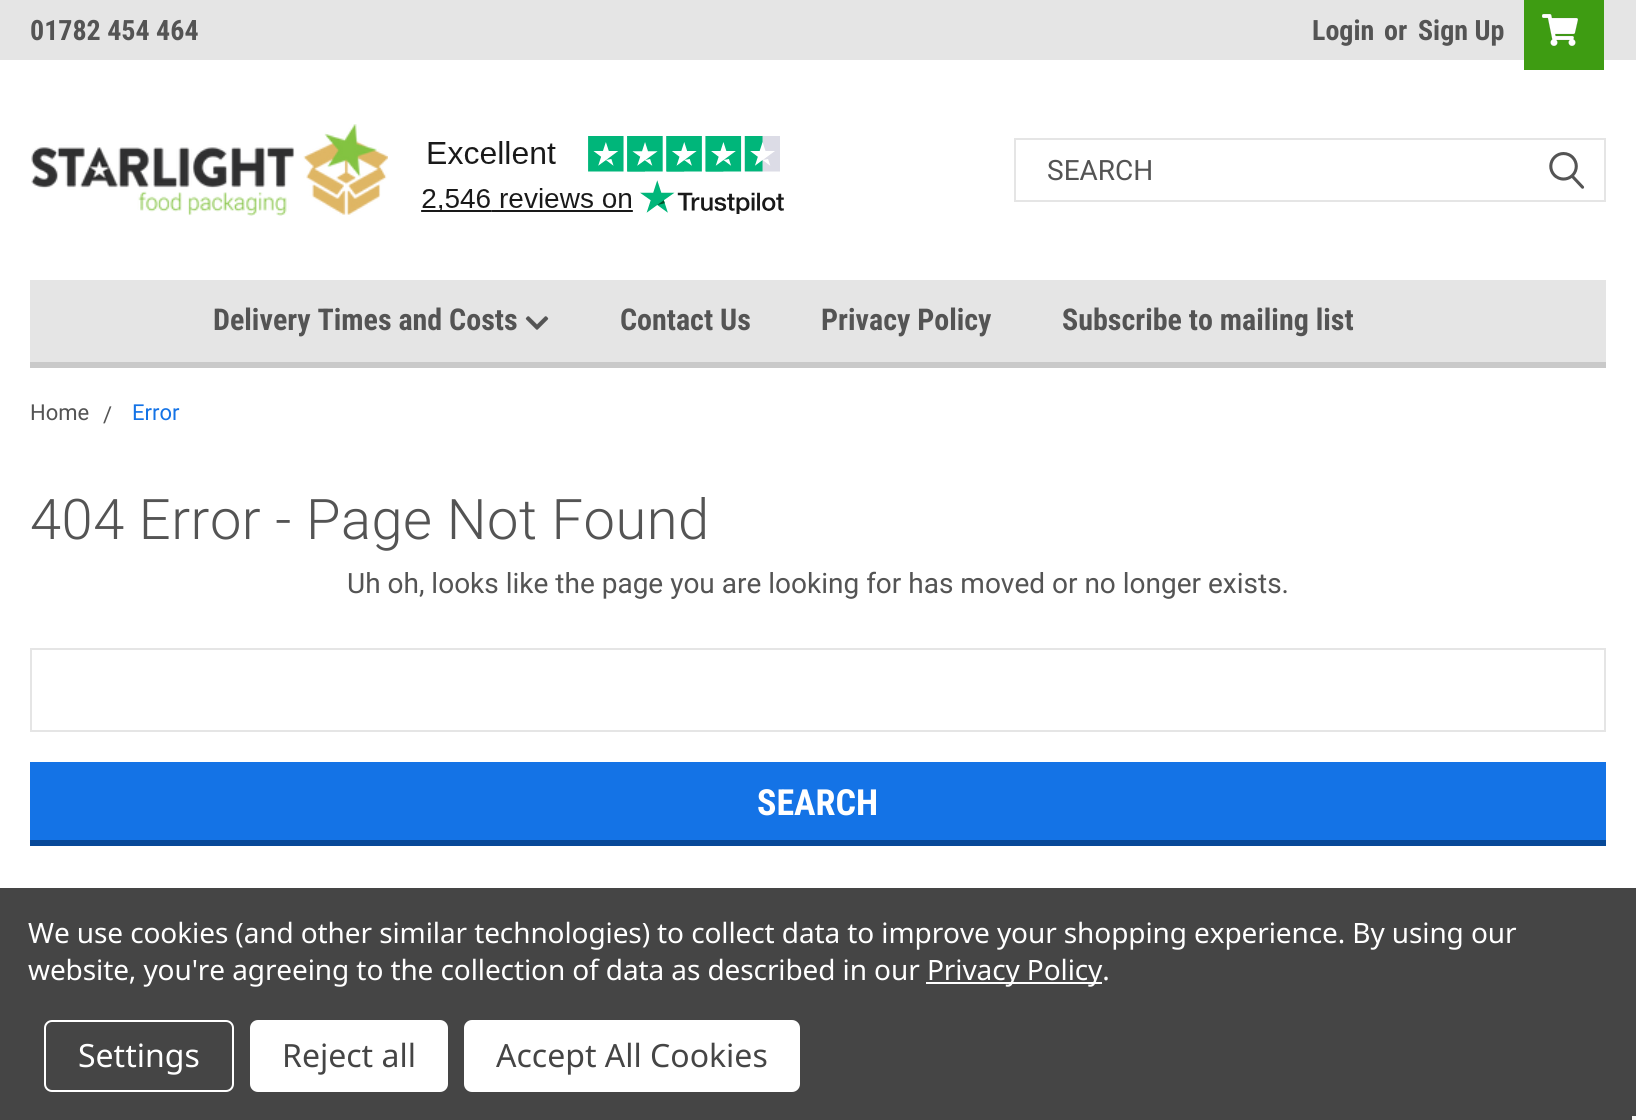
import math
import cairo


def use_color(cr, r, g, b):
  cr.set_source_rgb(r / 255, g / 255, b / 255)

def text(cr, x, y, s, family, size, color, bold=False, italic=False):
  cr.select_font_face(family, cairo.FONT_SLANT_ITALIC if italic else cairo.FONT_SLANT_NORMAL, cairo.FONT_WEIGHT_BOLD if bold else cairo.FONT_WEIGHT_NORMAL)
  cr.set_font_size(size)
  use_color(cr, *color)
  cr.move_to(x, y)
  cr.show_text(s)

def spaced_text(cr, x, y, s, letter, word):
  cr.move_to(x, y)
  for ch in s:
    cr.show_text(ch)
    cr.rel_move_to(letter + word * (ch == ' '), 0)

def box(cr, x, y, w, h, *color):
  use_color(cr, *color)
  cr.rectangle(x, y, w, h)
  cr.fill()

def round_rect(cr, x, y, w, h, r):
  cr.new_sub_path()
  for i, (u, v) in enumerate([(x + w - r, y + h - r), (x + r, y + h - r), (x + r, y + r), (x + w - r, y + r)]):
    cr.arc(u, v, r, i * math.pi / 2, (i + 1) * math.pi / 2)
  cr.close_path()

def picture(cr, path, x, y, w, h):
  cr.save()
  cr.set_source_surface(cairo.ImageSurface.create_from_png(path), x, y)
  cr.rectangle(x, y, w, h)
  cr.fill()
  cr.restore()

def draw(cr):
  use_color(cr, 255, 255, 255)
  cr.paint()
  box(cr, 0, 0, 1636, 60, 229, 229, 229)
  box(cr, 1524, 0, 80, 70, 62, 156, 18)
  picture(cr, "img_01.png", 1542, 13, 36, 33)
  picture(cr, "img_02.png", 31, 124, 357, 92)
  picture(cr, "img_03.png", 421, 136, 363, 78)
  cr.rectangle(1015, 139, 590, 62)
  use_color(cr, 229, 229, 229)
  cr.stroke()
  picture(cr, "img_04.png", 1549, 152, 36, 37)
  box(cr, 30, 280, 1576, 82, 229, 229, 229)
  box(cr, 30, 362, 1576, 6, 201, 201, 201)
  picture(cr, "img_05.png", 525, 316, 24, 14)
  cr.rectangle(31, 649, 1574, 82)
  use_color(cr, 229, 229, 229)
  cr.stroke()
  box(cr, 30, 762, 1576, 78, 20, 115, 230)
  box(cr, 30, 840, 1576, 6, 7, 73, 153)
  box(cr, 0, 888, 1636, 232, 69, 69, 69)
  box(cr, 926, 982, 176, 2, 255, 255, 255)
  round_rect(cr, 45, 1021, 188, 70, 7)
  cr.stroke()
  round_rect(cr, 250, 1020, 198, 72, 8)
  cr.fill()
  round_rect(cr, 464, 1020, 336, 72, 8)
  cr.fill()
  box(cr, 1632, 1116, 4, 4, 245, 245, 245)
  text(cr, 30, 40, "01782 454 464", "Roboto Condensed", 28, (84, 84, 84), bold=True)
  text(cr, 1312, 40, "Login", "Roboto Condensed", 28, (84, 84, 84), bold=True)
  text(cr, 1384, 40, "or", "Roboto Condensed", 28, (84, 84, 84), bold=True)
  text(cr, 1418, 40, "Sign Up", "Roboto Condensed", 28, (84, 84, 84), bold=True)
  text(cr, 1047, 180, "SEARCH", "Roboto", 28, (84, 84, 84))
  text(cr, 213, 330, "Delivery Times and Costs", "Roboto Condensed", 30, (84, 84, 84), bold=True)
  text(cr, 620, 330, "Contact Us", "Roboto Condensed", 30, (84, 84, 84), bold=True)
  text(cr, 821, 330, "Privacy Policy", "Roboto Condensed", 30, (84, 84, 84), bold=True)
  text(cr, 1062, 330, "Subscribe to mailing list", "Roboto Condensed", 30, (84, 84, 84), bold=True)
  text(cr, 30, 420, "Home", "Roboto", 22, (84, 84, 84))
  text(cr, 103, 422, "/", "Roboto", 22, (84, 84, 84))
  text(cr, 132, 420, "Error", "Roboto", 22, (20, 115, 230))
  cr.select_font_face("Roboto Light")
  cr.set_font_size(56)
  use_color(cr, 84, 84, 84)
  spaced_text(cr, 30, 539, "404 Error - Page Not Found", 0.5, 0)
  text(cr, 347, 593, "Uh oh, looks like the page you are looking for has moved or no longer exists.", "Roboto", 28, (84, 84, 84))
  text(cr, 757, 815, "SEARCH", "Roboto Condensed", 36, (255, 255, 255), bold=True)
  cr.select_font_face("Noto Sans")
  cr.set_font_size(28)
  spaced_text(cr, 28, 943, "We use cookies (and other similar technologies) to collect data to improve your shopping experience. By using our", -0.1, 0)
  spaced_text(cr, 28, 980, "website, you're agreeing to the collection of data as described in our", -0.1, 0)
  spaced_text(cr, 927, 980, "Privacy Policy.", -0.1, 0)
  text(cr, 78, 1067, "Settings", "Noto Sans", 32, (255, 255, 255))
  text(cr, 282, 1067, "Reject all", "Noto Sans", 32, (69, 69, 69))
  text(cr, 496, 1067, "Accept All Cookies", "Noto Sans", 32, (69, 69, 69))


surface = cairo.ImageSurface(cairo.FORMAT_RGB24, 1636, 1120)
cr = cairo.Context(surface)
options = cairo.FontOptions()
options.set_hint_metrics(cairo.HINT_METRICS_OFF)
options.set_hint_style(cairo.HINT_STYLE_NONE)
cr.set_font_options(options)
cr.set_miter_limit(4)
draw(cr)
surface.write_to_png("out.png")
